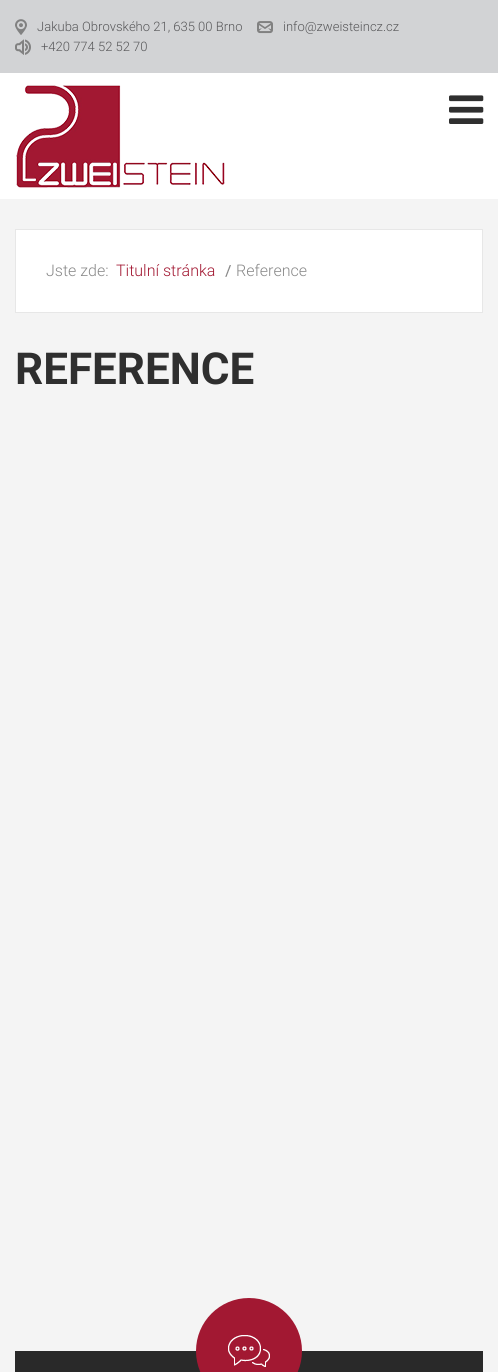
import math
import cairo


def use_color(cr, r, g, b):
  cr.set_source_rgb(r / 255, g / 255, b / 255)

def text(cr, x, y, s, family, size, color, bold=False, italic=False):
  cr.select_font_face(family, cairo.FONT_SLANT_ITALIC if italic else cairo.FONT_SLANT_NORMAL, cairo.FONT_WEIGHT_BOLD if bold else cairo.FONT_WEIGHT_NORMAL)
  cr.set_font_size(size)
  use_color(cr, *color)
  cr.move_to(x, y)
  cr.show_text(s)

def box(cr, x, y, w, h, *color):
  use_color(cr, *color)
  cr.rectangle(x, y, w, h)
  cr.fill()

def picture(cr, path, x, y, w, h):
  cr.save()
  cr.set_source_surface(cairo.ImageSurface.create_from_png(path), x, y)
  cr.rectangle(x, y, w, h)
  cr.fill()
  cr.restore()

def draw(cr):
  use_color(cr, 244, 244, 244)
  cr.paint()
  box(cr, 0, 0, 498, 73, 210, 211, 213)
  picture(cr, "img_01.png", 15, 19, 12, 16)
  picture(cr, "img_02.png", 257, 21, 16, 13)
  picture(cr, "img_03.png", 15, 39, 16, 16)
  box(cr, 0, 73, 498, 126, 255, 255, 255)
  picture(cr, "img_04.png", 16, 85, 209, 103)
  picture(cr, "img_05.png", 449, 95, 35, 29)
  cr.rectangle(15.5, 229.5, 467, 83)
  cr.fill_preserve()
  use_color(cr, 231, 231, 231)
  cr.set_line_width(1)
  cr.stroke()
  picture(cr, "img_06.png", 225, 265, 6, 12)
  box(cr, 15, 1351, 468, 21, 41, 41, 41)
  use_color(cr, 162, 24, 50)
  cr.arc(249, 1351, 53, 0, 2 * math.pi)
  cr.fill()
  picture(cr, "img_07.png", 228, 1335, 42, 32)
  text(cr, 37, 31, "Jakuba Obrovského 21, 635 00 Brno", "Roboto Light", 13, (88, 88, 90))
  text(cr, 283, 31, "info@zweisteincz.cz", "Roboto Light", 13, (88, 88, 90))
  text(cr, 41, 51, "+420 774 52 52 70", "Roboto Light", 13, (88, 88, 90))
  text(cr, 46, 276, "Jste zde:", "Roboto Light", 16, (137, 137, 137))
  text(cr, 116, 276, "Titulní stránka", "Roboto Light", 16, (162, 24, 50))
  text(cr, 236, 276, "Reference", "Roboto Light", 16, (137, 137, 137))
  text(cr, 15, 384, "REFERENCE", "Roboto", 44, (47, 47, 47), bold=True)


surface = cairo.ImageSurface(cairo.FORMAT_RGB24, 498, 1372)
cr = cairo.Context(surface)
options = cairo.FontOptions()
options.set_hint_metrics(cairo.HINT_METRICS_OFF)
options.set_hint_style(cairo.HINT_STYLE_NONE)
cr.set_font_options(options)
cr.set_miter_limit(4)
draw(cr)
surface.write_to_png("out.png")
